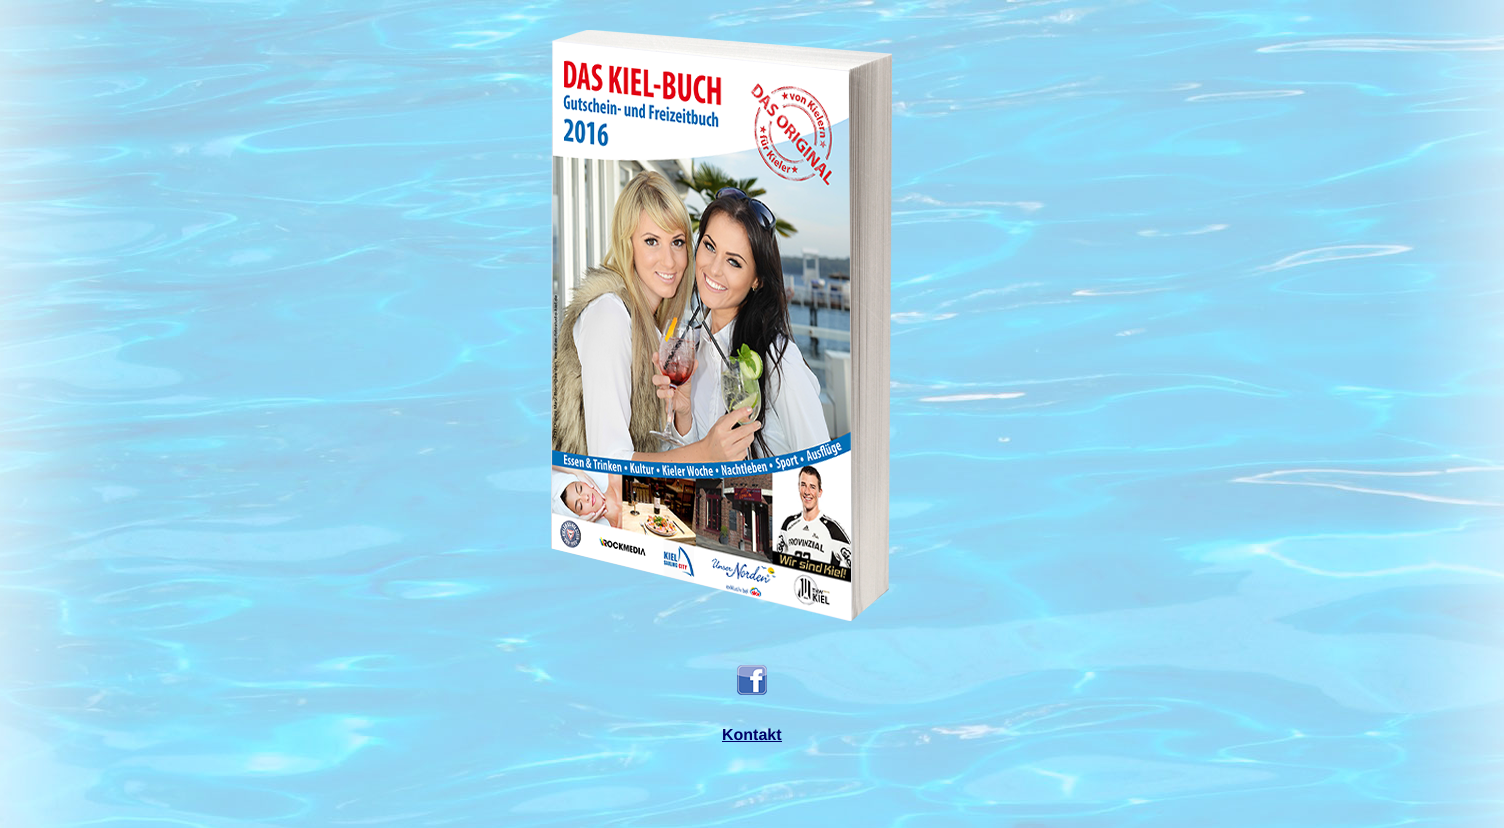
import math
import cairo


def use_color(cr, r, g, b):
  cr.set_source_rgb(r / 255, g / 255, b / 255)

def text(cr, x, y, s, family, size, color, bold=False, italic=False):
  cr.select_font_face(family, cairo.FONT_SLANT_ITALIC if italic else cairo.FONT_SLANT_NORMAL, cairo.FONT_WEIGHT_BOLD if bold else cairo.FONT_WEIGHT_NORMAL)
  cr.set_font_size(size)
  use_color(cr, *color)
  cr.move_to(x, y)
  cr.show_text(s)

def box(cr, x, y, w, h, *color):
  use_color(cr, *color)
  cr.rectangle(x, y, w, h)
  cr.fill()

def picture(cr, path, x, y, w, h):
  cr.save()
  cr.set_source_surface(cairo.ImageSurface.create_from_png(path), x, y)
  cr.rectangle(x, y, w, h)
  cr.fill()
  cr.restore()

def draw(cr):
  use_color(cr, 255, 255, 255)
  cr.paint()
  picture(cr, "img_01.png", 0, 0, 1504, 828)
  picture(cr, "img_02.png", 551, 30, 341, 591)
  picture(cr, "img_03.png", 737, 665, 30, 30)
  box(cr, 722, 741, 60, 1, 0, 0, 102)
  text(cr, 722, 740, "Kontakt", "Liberation Sans", 16, (0, 0, 102), bold=True)


surface = cairo.ImageSurface(cairo.FORMAT_RGB24, 1504, 828)
cr = cairo.Context(surface)
options = cairo.FontOptions()
options.set_hint_metrics(cairo.HINT_METRICS_OFF)
options.set_hint_style(cairo.HINT_STYLE_NONE)
cr.set_font_options(options)
cr.set_miter_limit(4)
draw(cr)
surface.write_to_png("out.png")
